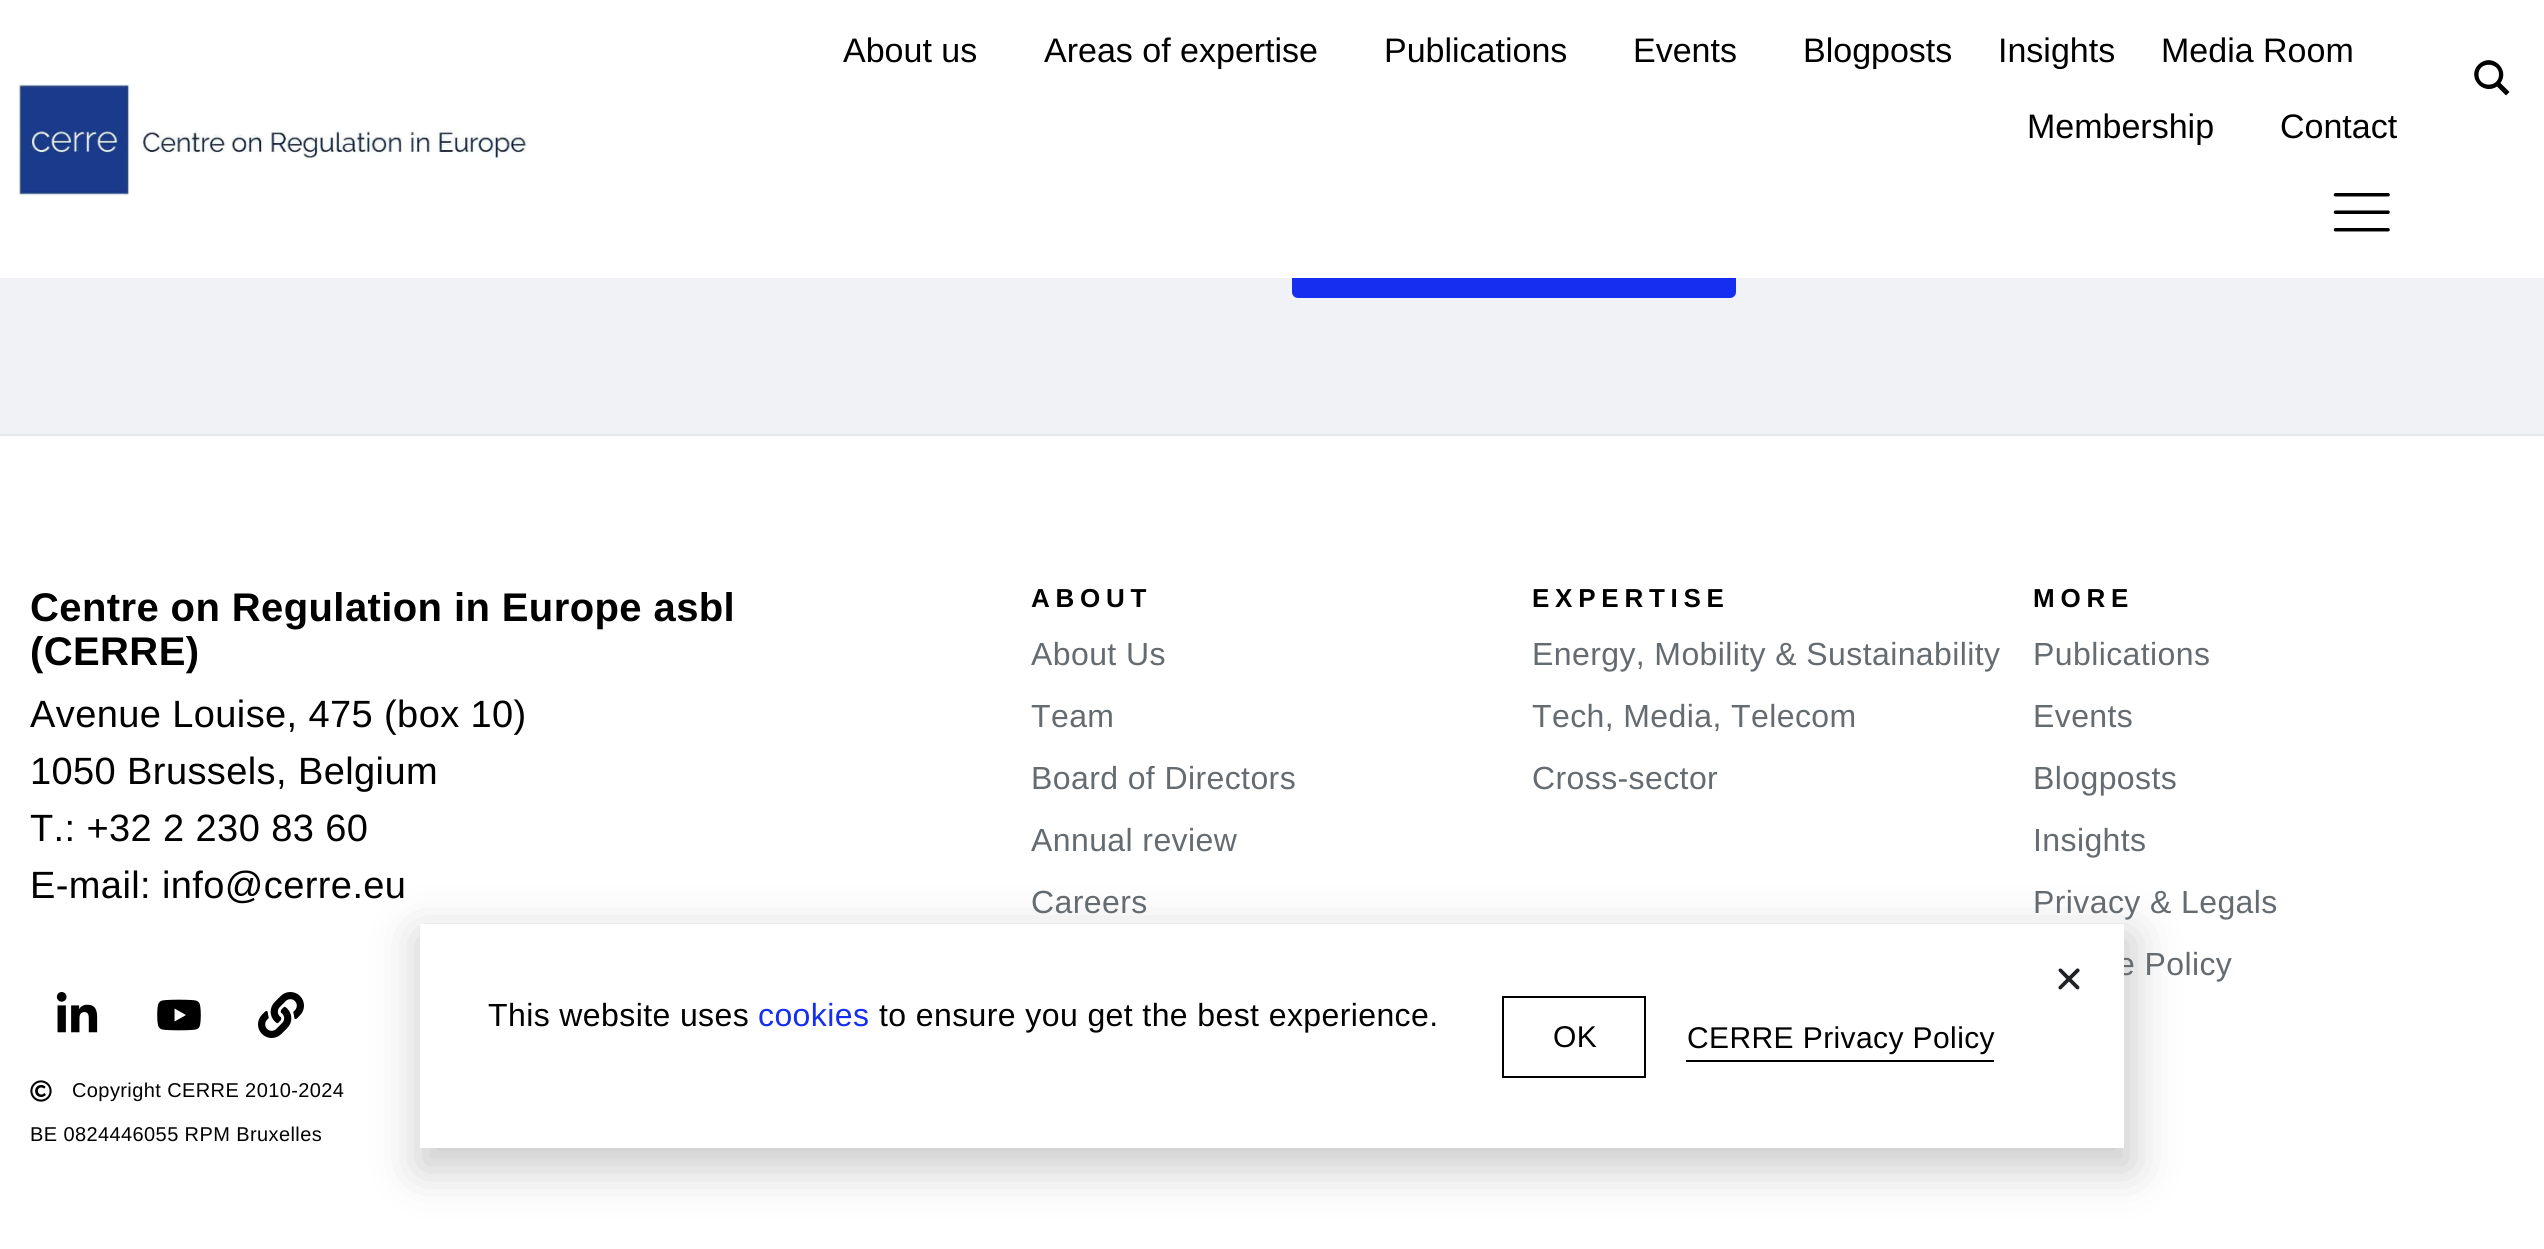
import math
import cairo


def use_color(cr, r, g, b):
  cr.set_source_rgb(r / 255, g / 255, b / 255)

def text(cr, x, y, s, family, size, color, bold=False, italic=False):
  cr.select_font_face(family, cairo.FONT_SLANT_ITALIC if italic else cairo.FONT_SLANT_NORMAL, cairo.FONT_WEIGHT_BOLD if bold else cairo.FONT_WEIGHT_NORMAL)
  cr.set_font_size(size)
  use_color(cr, *color)
  cr.move_to(x, y)
  cr.show_text(s)

def spaced_text(cr, x, y, s, letter, word):
  cr.move_to(x, y)
  for ch in s:
    cr.show_text(ch)
    cr.rel_move_to(letter + word * (ch == ' '), 0)

def box(cr, x, y, w, h, *color):
  use_color(cr, *color)
  cr.rectangle(x, y, w, h)
  cr.fill()

def round_rect(cr, x, y, w, h, r):
  cr.new_sub_path()
  for i, (u, v) in enumerate([(x + w - r, y + h - r), (x + r, y + h - r), (x + r, y + r), (x + w - r, y + r)]):
    cr.arc(u, v, r, i * math.pi / 2, (i + 1) * math.pi / 2)
  cr.close_path()

def shadow(cr, x, y, w, h, r, blur, alpha):
  cr.push_group_with_content(cairo.CONTENT_ALPHA)
  cr.set_operator(cairo.OPERATOR_SOURCE)
  for i in range(15, -16, -2):
    e = blur * i / 6
    if min(w, h) + 2 * e > 0:
      cr.set_source_rgba(0, 0, 0, alpha * math.erfc((i - 1) / 8.5) / 2)
      round_rect(cr, x - e, y - e, w + 2 * e, h + 2 * e, max(0, min(r + e + blur * .6, min(w, h) / 2 + e)))
      cr.fill()
  cr.mask(cr.pop_group())

def picture(cr, path, x, y, w, h):
  cr.save()
  cr.set_source_surface(cairo.ImageSurface.create_from_png(path), x, y)
  cr.rectangle(x, y, w, h)
  cr.fill()
  cr.restore()

def draw(cr):
  use_color(cr, 255, 255, 255)
  cr.paint()
  box(cr, 0, 278, 2544, 156, 240, 242, 246)
  use_color(cr, 21, 46, 240)
  round_rect(cr, 1292, 182, 444, 116, 6)
  cr.fill()
  box(cr, 1292, 182, 444, 96, 255, 255, 255)
  picture(cr, "img_01.png", 18, 84, 510, 112)
  picture(cr, "img_02.png", 2333, 193, 57, 39)
  use_color(cr, 0, 0, 0)
  cr.new_path()
  cr.move_to(2509.5, 92)
  cr.line_to(2500.5, 83)
  cr.curve_to(2510.5, 69, 2491.5, 52, 2478.5, 64.5)
  cr.curve_to(2466, 77, 2483, 96, 2497, 86.5)
  cr.line_to(2506, 95.5)
  cr.close_path()
  cr.move_to(2478.5, 74.5)
  cr.curve_to(2478.5, 61.5, 2499, 61.5, 2499, 74.5)
  cr.curve_to(2499, 88, 2478.5, 88, 2478.5, 74.5)
  cr.close_path()
  cr.fill()
  box(cr, 0, 434, 2544, 2, 230, 232, 236)
  picture(cr, "img_03.png", 56, 992, 42, 41)
  picture(cr, "img_04.png", 157, 999, 44, 32)
  picture(cr, "img_05.png", 258, 992, 46, 46)
  picture(cr, "img_06.png", 30, 1080, 22, 22)
  use_color(cr, 0, 0, 0)
  shadow(cr, 418, 934, 1716, 236, 0, 23, 0.2)
  text(cr, 843, 62, "About us", "Liberation Sans", 34, (0, 0, 0))
  text(cr, 1044, 62, "Areas of expertise", "Liberation Sans", 34, (0, 0, 0))
  text(cr, 1384, 62, "Publications", "Liberation Sans", 34, (0, 0, 0))
  text(cr, 1633, 62, "Events", "Liberation Sans", 34, (0, 0, 0))
  text(cr, 1803, 62, "Blogposts", "Liberation Sans", 34, (0, 0, 0))
  text(cr, 1998, 62, "Insights", "Liberation Sans", 34, (0, 0, 0))
  text(cr, 2161, 62, "Media Room", "Liberation Sans", 34, (0, 0, 0))
  text(cr, 2027, 138, "Membership", "Liberation Sans", 34, (0, 0, 0))
  text(cr, 2280, 138, "Contact", "Liberation Sans", 34, (0, 0, 0))
  cr.select_font_face("Liberation Sans", cairo.FONT_SLANT_NORMAL, cairo.FONT_WEIGHT_BOLD)
  cr.set_font_size(40)
  spaced_text(cr, 30, 621, "Centre on Regulation in Europe asbl", 0.4, 0)
  spaced_text(cr, 30, 665, "(CERRE)", 0.4, 0)
  cr.select_font_face("Liberation Sans")
  cr.set_font_size(38)
  spaced_text(cr, 30, 727, "Avenue Louise, 475 (box 10)", 0.4, 0)
  spaced_text(cr, 30, 784, "1050 Brussels, Belgium", 0.4, 0)
  spaced_text(cr, 30, 841, "T.: +32 2 230 83 60", 0.4, 0)
  spaced_text(cr, 30, 898, "E-mail: info@cerre.eu", 0.4, 0)
  cr.set_font_size(20)
  spaced_text(cr, 72, 1097, "Copyright CERRE 2010-2024", 0.4, 0)
  spaced_text(cr, 30, 1141, "BE 0824446055 RPM Bruxelles", 0.4, 0)
  cr.select_font_face("Liberation Sans", cairo.FONT_SLANT_NORMAL, cairo.FONT_WEIGHT_BOLD)
  cr.set_font_size(26)
  spaced_text(cr, 1031, 607, "ABOUT", 5.75, 0)
  cr.select_font_face("Liberation Sans")
  cr.set_font_size(32)
  use_color(cr, 101, 108, 113)
  spaced_text(cr, 1031, 665, "About Us", 0.4, 0)
  spaced_text(cr, 1031, 727, "Team", 0.4, 0)
  spaced_text(cr, 1031, 789, "Board of Directors", 0.4, 0)
  spaced_text(cr, 1031, 851, "Annual review", 0.4, 0)
  spaced_text(cr, 1031, 913, "Careers", 0.4, 0)
  cr.select_font_face("Liberation Sans", cairo.FONT_SLANT_NORMAL, cairo.FONT_WEIGHT_BOLD)
  cr.set_font_size(26)
  use_color(cr, 0, 0, 0)
  spaced_text(cr, 1532, 607, "EXPERTISE", 5.75, 0)
  cr.select_font_face("Liberation Sans")
  cr.set_font_size(32)
  use_color(cr, 101, 108, 113)
  spaced_text(cr, 1532, 665, "Energy, Mobility & Sustainability", 0.4, 0)
  spaced_text(cr, 1532, 727, "Tech, Media, Telecom", 0.4, 0)
  spaced_text(cr, 1532, 789, "Cross-sector", 0.4, 0)
  cr.select_font_face("Liberation Sans", cairo.FONT_SLANT_NORMAL, cairo.FONT_WEIGHT_BOLD)
  cr.set_font_size(26)
  use_color(cr, 0, 0, 0)
  spaced_text(cr, 2033, 607, "MORE", 5.75, 0)
  cr.select_font_face("Liberation Sans")
  cr.set_font_size(32)
  use_color(cr, 101, 108, 113)
  spaced_text(cr, 2033, 665, "Publications", 0.4, 0)
  spaced_text(cr, 2033, 727, "Events", 0.4, 0)
  spaced_text(cr, 2033, 789, "Blogposts", 0.4, 0)
  spaced_text(cr, 2033, 851, "Insights", 0.4, 0)
  spaced_text(cr, 2033, 913, "Privacy & Legals", 0.4, 0)
  spaced_text(cr, 2117, 975, "e Policy", 0.4, 0)
  box(cr, 420, 924, 1704, 224, 255, 255, 255)
  picture(cr, "img_07.png", 2058, 968, 22, 22)
  use_color(cr, 0, 0, 0)
  spaced_text(cr, 488, 1026, "This website uses", 0.4, 0)
  use_color(cr, 21, 46, 240)
  spaced_text(cr, 758, 1026, "cookies", 0.4, 0)
  use_color(cr, 0, 0, 0)
  spaced_text(cr, 879, 1026, "to ensure you get the best experience.", 0.4, 0)
  cr.rectangle(1503, 997, 142, 80)
  cr.stroke()
  cr.set_font_size(30)
  spaced_text(cr, 1553, 1047, "OK", 0.4, 0)
  box(cr, 1686, 1060, 308, 2, 0, 0, 0)
  spaced_text(cr, 1687, 1048, "CERRE Privacy Policy", 0.4, 0)


surface = cairo.ImageSurface(cairo.FORMAT_RGB24, 2544, 1249)
cr = cairo.Context(surface)
options = cairo.FontOptions()
options.set_hint_metrics(cairo.HINT_METRICS_OFF)
options.set_hint_style(cairo.HINT_STYLE_NONE)
cr.set_font_options(options)
cr.set_miter_limit(4)
draw(cr)
surface.write_to_png("out.png")
